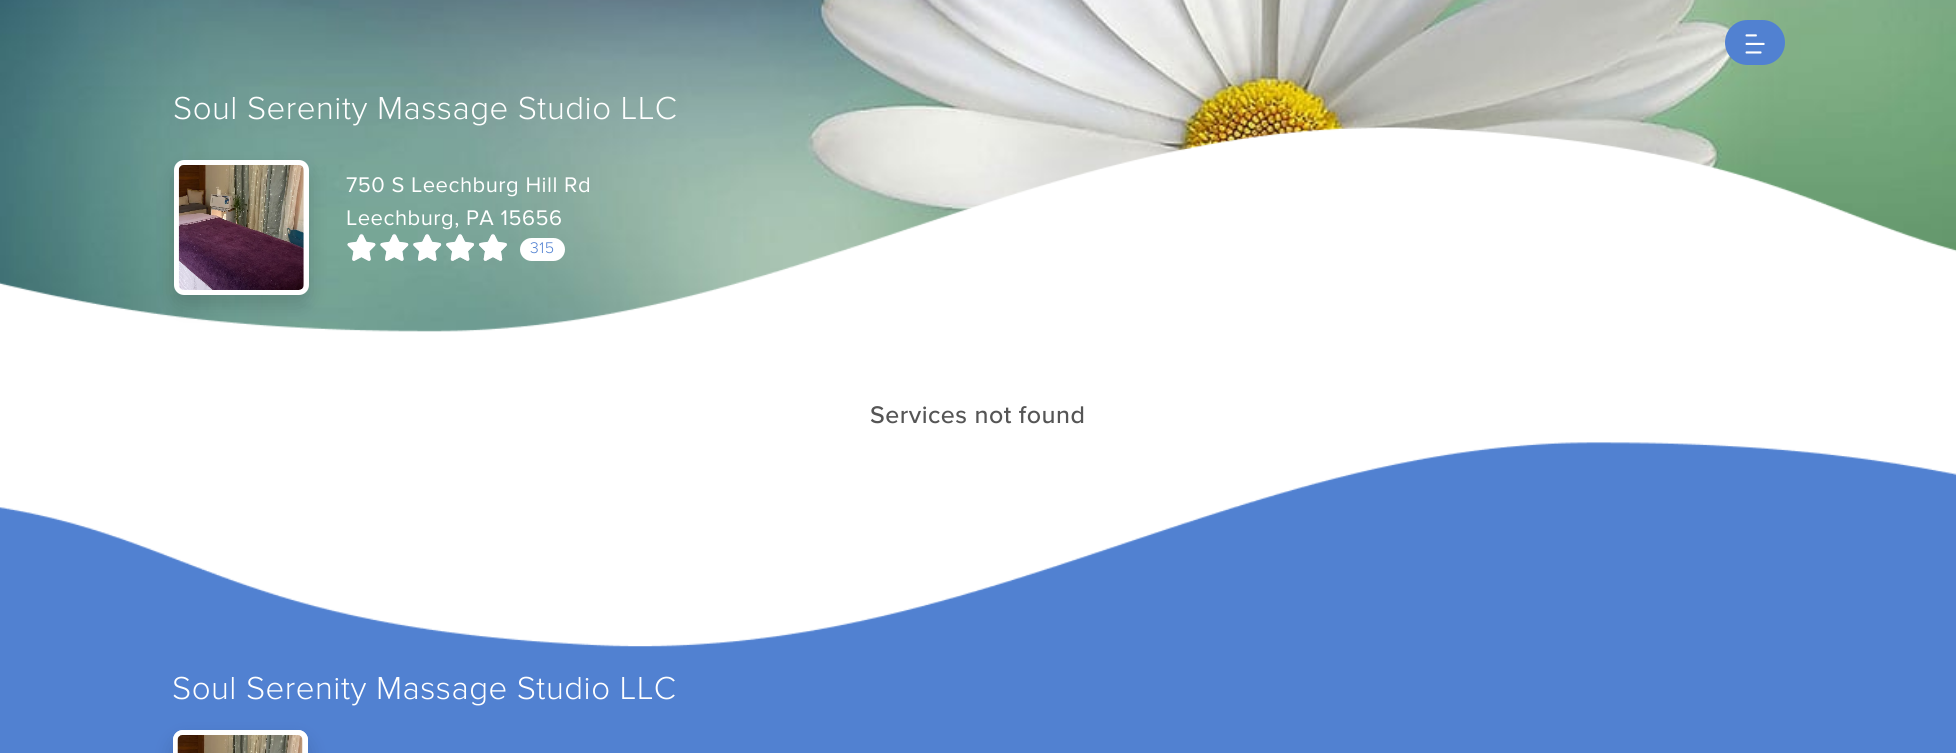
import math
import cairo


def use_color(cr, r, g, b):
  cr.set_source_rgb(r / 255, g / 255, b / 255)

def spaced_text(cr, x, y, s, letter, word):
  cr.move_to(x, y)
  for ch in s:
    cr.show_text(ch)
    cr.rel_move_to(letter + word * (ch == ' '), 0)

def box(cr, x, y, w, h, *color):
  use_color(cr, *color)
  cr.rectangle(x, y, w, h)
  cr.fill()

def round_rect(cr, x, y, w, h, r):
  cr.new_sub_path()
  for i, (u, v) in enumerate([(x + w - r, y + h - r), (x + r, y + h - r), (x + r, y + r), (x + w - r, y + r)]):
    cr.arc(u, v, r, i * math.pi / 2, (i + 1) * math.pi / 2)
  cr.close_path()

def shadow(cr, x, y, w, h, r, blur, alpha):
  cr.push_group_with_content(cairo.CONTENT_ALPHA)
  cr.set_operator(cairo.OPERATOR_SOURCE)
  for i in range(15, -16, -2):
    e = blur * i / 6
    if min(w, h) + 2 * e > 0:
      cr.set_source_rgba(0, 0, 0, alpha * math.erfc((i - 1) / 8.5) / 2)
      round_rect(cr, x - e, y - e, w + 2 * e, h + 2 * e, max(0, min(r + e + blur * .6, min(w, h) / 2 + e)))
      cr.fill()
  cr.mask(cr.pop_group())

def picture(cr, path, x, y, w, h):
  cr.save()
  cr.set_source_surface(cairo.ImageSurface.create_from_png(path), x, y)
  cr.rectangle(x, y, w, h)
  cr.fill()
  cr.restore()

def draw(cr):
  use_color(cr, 255, 255, 255)
  cr.paint()
  picture(cr, "img_02.png", 0, 0, 1956, 332)
  use_color(cr, 81, 129, 209)
  round_rect(cr, 1725, 20, 60, 45, 22.5)
  cr.fill()
  picture(cr, "img_01.png", 1745, 34, 20, 20)
  picture(cr, "img_06.png", 0, 127, 1956, 223)
  use_color(cr, 0, 0, 0)
  shadow(cr, 174, 170, 135, 135, 10, 10, 0.15)
  use_color(cr, 255, 255, 255)
  round_rect(cr, 176.5, 162.5, 130, 130, 7.5)
  cr.fill_preserve()
  cr.set_line_width(5)
  cr.stroke()
  picture(cr, "img_03.png", 178, 165, 126, 125)
  picture(cr, "img_04.png", 347, 233, 160, 28)
  picture(cr, "img_05.png", 347, 235, 160, 26)
  round_rect(cr, 520, 238, 45, 23, 11.5)
  cr.fill()
  box(cr, 0, 442, 1956, 311, 81, 129, 209)
  picture(cr, "img_07.png", 0, 440, 1956, 207)
  use_color(cr, 0, 0, 0)
  shadow(cr, 173, 740, 135, 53, 10, 10, 0.15)
  use_color(cr, 255, 255, 255)
  cr.new_path()
  cr.move_to(183, 730)
  cr.line_to(298, 730)
  cr.curve_to(303.5, 730, 308, 734.5, 308, 740)
  cr.line_to(308, 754)
  cr.line_to(173, 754)
  cr.line_to(173, 740)
  cr.curve_to(173, 734.5, 177.5, 730, 183, 730)
  cr.close_path()
  cr.fill()
  round_rect(cr, 175.5, 732.5, 130, 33, 7.5)
  cr.stroke()
  picture(cr, "img_08.png", 177, 735, 126, 18)
  cr.select_font_face("Proxima Nova Light")
  cr.set_font_size(33)
  spaced_text(cr, 173, 119, "Soul Serenity Massage Studio LLC", 0.5, 0)
  cr.select_font_face("Proxima Nova")
  cr.set_font_size(22)
  spaced_text(cr, 346, 192, "750 S Leechburg Hill Rd", 0.5, 0)
  spaced_text(cr, 346, 225, "Leechburg, PA 15656", 0.5, 0)
  cr.select_font_face("Proxima Nova Light")
  cr.set_font_size(16)
  use_color(cr, 81, 129, 209)
  spaced_text(cr, 530, 253, "315", 0.5, 0)
  cr.select_font_face("Proxima Nova Medium")
  cr.set_font_size(25)
  use_color(cr, 85, 85, 85)
  spaced_text(cr, 870, 423, "Services not found", 0.5, 0)
  cr.select_font_face("Proxima Nova Light")
  cr.set_font_size(33)
  use_color(cr, 255, 255, 255)
  spaced_text(cr, 172, 699, "Soul Serenity Massage Studio LLC", 0.5, 0)


surface = cairo.ImageSurface(cairo.FORMAT_RGB24, 1956, 753)
cr = cairo.Context(surface)
options = cairo.FontOptions()
options.set_hint_metrics(cairo.HINT_METRICS_OFF)
options.set_hint_style(cairo.HINT_STYLE_NONE)
cr.set_font_options(options)
cr.set_miter_limit(4)
draw(cr)
surface.write_to_png("out.png")
